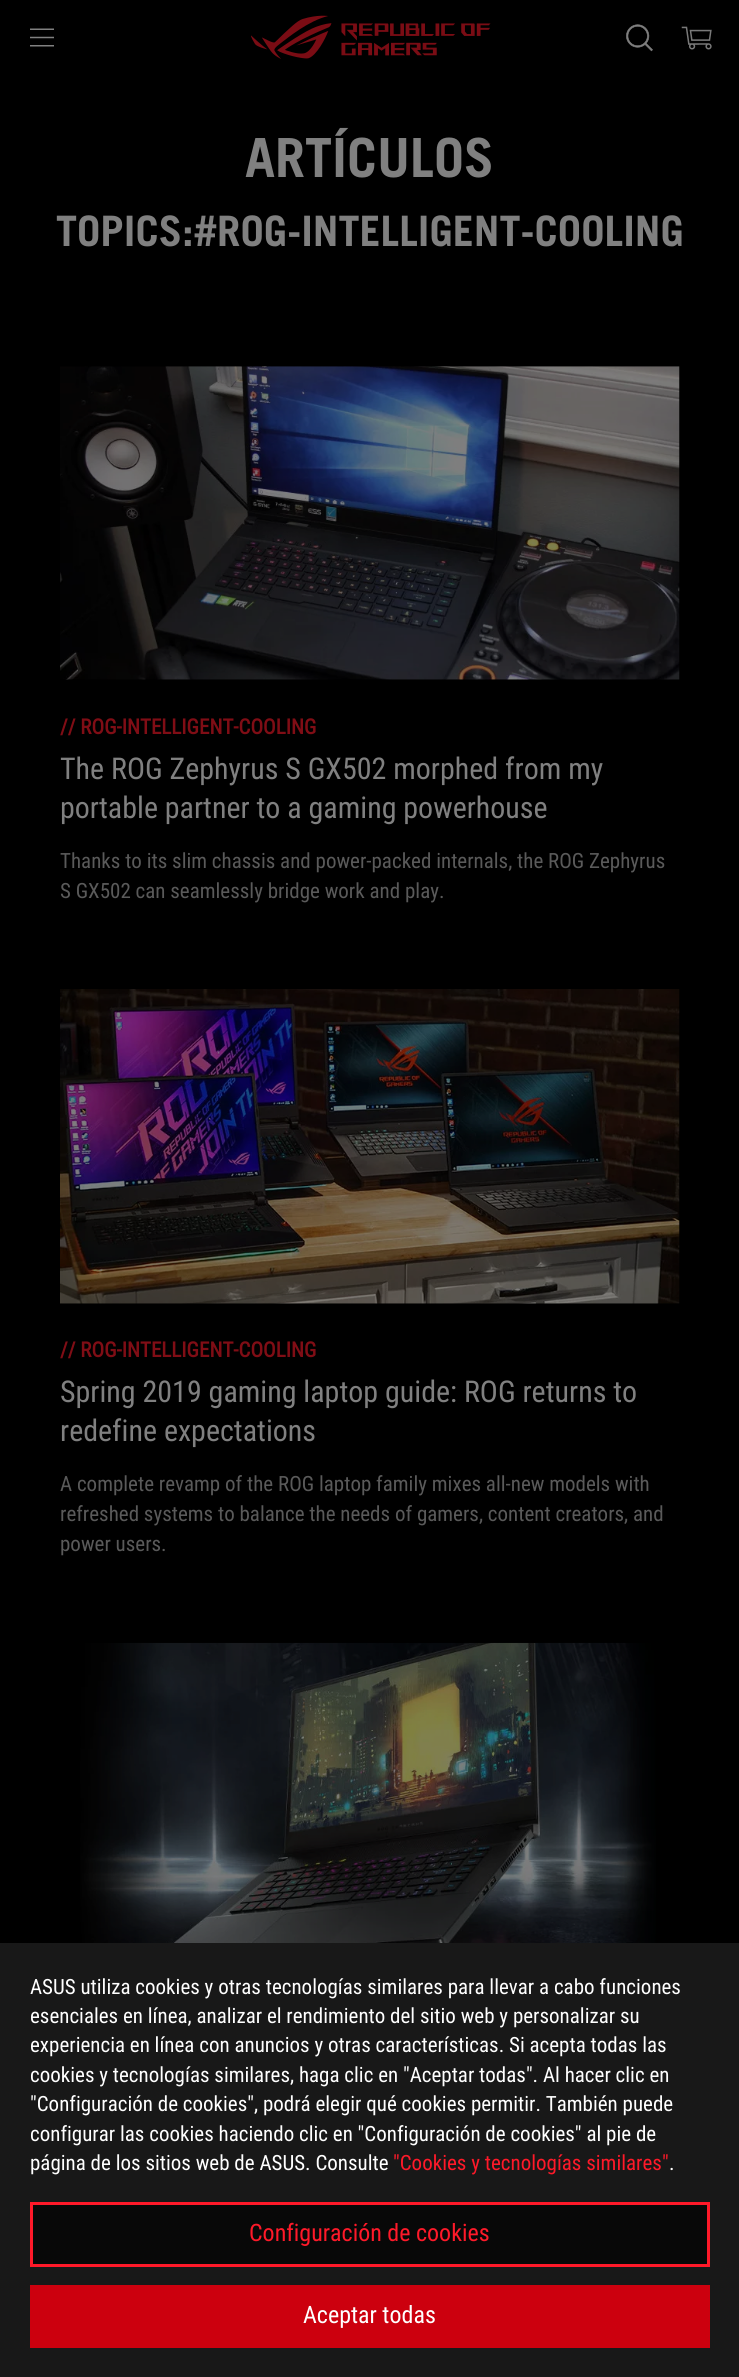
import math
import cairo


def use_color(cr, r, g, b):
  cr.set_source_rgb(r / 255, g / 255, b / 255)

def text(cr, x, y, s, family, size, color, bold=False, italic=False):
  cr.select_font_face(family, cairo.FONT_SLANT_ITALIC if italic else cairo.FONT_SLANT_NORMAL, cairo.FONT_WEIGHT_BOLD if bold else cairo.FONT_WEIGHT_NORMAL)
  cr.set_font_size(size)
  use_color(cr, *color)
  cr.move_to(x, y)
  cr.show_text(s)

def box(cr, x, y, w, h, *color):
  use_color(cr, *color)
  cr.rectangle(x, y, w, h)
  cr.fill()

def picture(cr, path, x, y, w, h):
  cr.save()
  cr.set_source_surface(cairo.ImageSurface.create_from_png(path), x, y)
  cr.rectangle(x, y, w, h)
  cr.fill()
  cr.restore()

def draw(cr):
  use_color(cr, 0, 0, 0)
  cr.paint()
  picture(cr, "img_01.png", 30, 28, 24, 19)
  picture(cr, "img_02.png", 251, 15, 240, 44)
  picture(cr, "img_03.png", 626, 24, 27, 28)
  picture(cr, "img_04.png", 681, 26, 31, 24)
  picture(cr, "img_05.png", 60, 366, 620, 314)
  picture(cr, "img_06.png", 60, 989, 620, 315)
  picture(cr, "img_07.png", 80, 1642, 576, 301)
  box(cr, 0, 1943, 739, 434, 24, 24, 24)
  use_color(cr, 8, 8, 8)
  cr.rectangle(31.5, 2203.5, 677, 62)
  cr.fill_preserve()
  use_color(cr, 255, 25, 41)
  cr.set_line_width(3)
  cr.stroke()
  box(cr, 30, 2285, 680, 63, 204, 0, 14)
  text(cr, 245, 177, "ARTÍCULOS", "Trade Gothic", 54, (128, 128, 128), bold=True)
  text(cr, 56, 246, "TOPICS:#ROG-INTELLIGENT-COOLING", "Trade Gothic", 42, (128, 128, 128), bold=True)
  text(cr, 60, 734, "// ROG-INTELLIGENT-COOLING", "Roboto Condensed", 21, (128, 13, 21), bold=True)
  text(cr, 60, 779, "The ROG Zephyrus S GX502 morphed from my", "Roboto Condensed", 30, (128, 128, 128))
  text(cr, 60, 818, "portable partner to a gaming powerhouse", "Roboto Condensed", 30, (128, 128, 128))
  text(cr, 60, 868, "Thanks to its slim chassis and power-packed internals, the ROG Zephyrus", "Roboto Condensed", 21, (90, 90, 90))
  text(cr, 60, 898, "S GX502 can seamlessly bridge work and play.", "Roboto Condensed", 21, (90, 90, 90))
  text(cr, 60, 1357, "// ROG-INTELLIGENT-COOLING", "Roboto Condensed", 21, (128, 13, 21), bold=True)
  text(cr, 60, 1402, "Spring 2019 gaming laptop guide: ROG returns to", "Roboto Condensed", 30, (128, 128, 128))
  text(cr, 60, 1441, "redefine expectations", "Roboto Condensed", 30, (128, 128, 128))
  text(cr, 60, 1491, "A complete revamp of the ROG laptop family mixes all-new models with", "Roboto Condensed", 21, (90, 90, 90))
  text(cr, 60, 1521, "refreshed systems to balance the needs of gamers, content creators, and", "Roboto Condensed", 21, (90, 90, 90))
  text(cr, 60, 1551, "power users.", "Roboto Condensed", 21, (90, 90, 90))
  text(cr, 30, 1994, "ASUS utiliza cookies y otras tecnologías similares para llevar a cabo funciones", "Roboto Condensed", 21, (255, 255, 255))
  text(cr, 30, 2023, "esenciales en línea, analizar el rendimiento del sitio web y personalizar su", "Roboto Condensed", 21, (255, 255, 255))
  text(cr, 30, 2052, "experiencia en línea con anuncios y otras características. Si acepta todas las", "Roboto Condensed", 21, (255, 255, 255))
  text(cr, 30, 2082, "cookies y tecnologías similares, haga clic en \"Aceptar todas\". Al hacer clic en", "Roboto Condensed", 21, (255, 255, 255))
  text(cr, 30, 2111, "\"Configuración de cookies\", podrá elegir qué cookies permitir. También puede", "Roboto Condensed", 21, (255, 255, 255))
  text(cr, 30, 2141, "configurar las cookies haciendo clic en \"Configuración de cookies\" al pie de", "Roboto Condensed", 21, (255, 255, 255))
  text(cr, 30, 2170, "página de los sitios web de ASUS. Consulte", "Roboto Condensed", 21, (255, 255, 255))
  text(cr, 393, 2170, "\"Cookies y tecnologías similares\"", "Roboto Condensed", 21, (255, 25, 41))
  text(cr, 669, 2170, ".", "Roboto Condensed", 21, (255, 255, 255))
  text(cr, 249, 2241, "Configuración de cookies", "Roboto Condensed", 24, (255, 25, 41))
  text(cr, 303, 2323, "Aceptar todas", "Roboto Condensed", 24, (255, 255, 255))


surface = cairo.ImageSurface(cairo.FORMAT_RGB24, 739, 2377)
cr = cairo.Context(surface)
options = cairo.FontOptions()
options.set_hint_metrics(cairo.HINT_METRICS_OFF)
options.set_hint_style(cairo.HINT_STYLE_NONE)
cr.set_font_options(options)
cr.set_miter_limit(4)
draw(cr)
surface.write_to_png("out.png")
